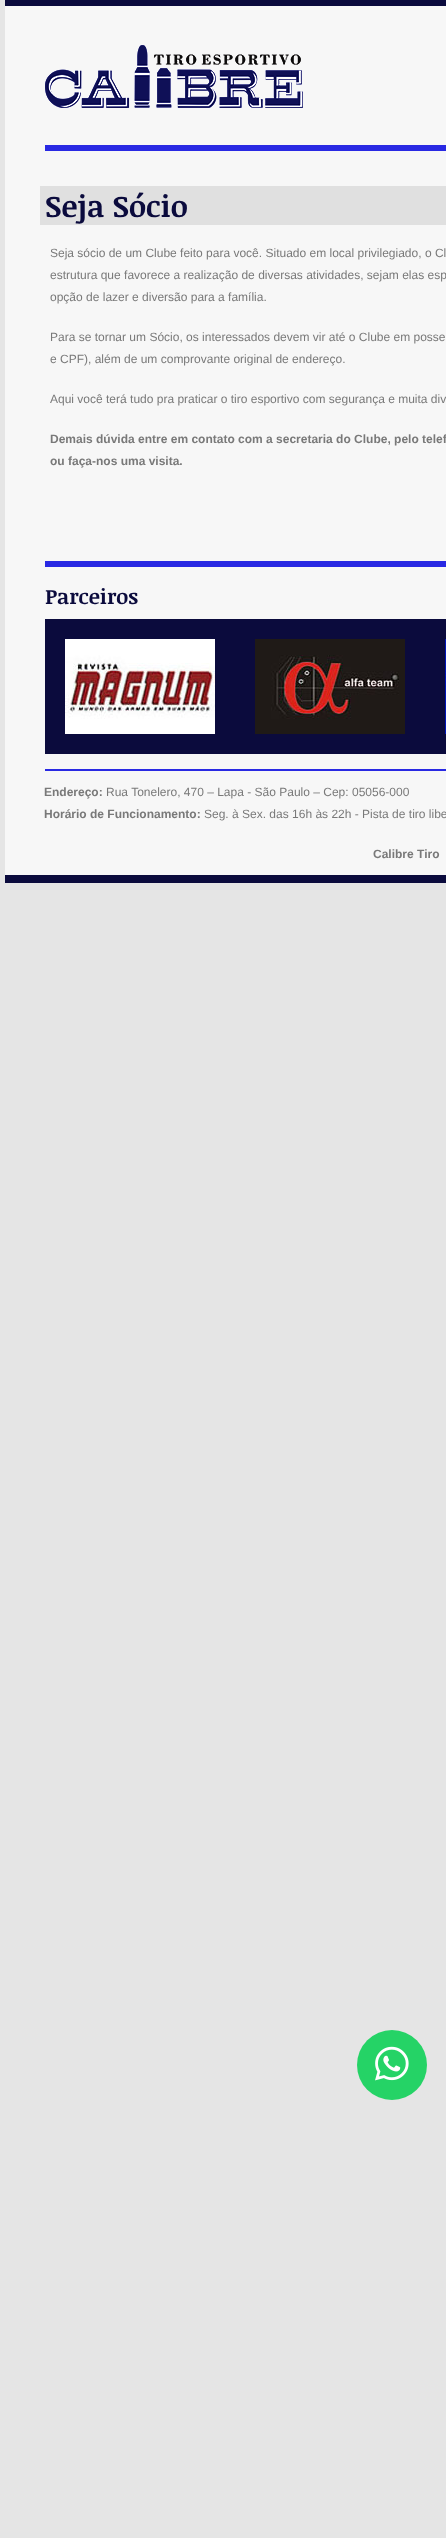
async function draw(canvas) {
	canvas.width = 446;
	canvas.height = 2538;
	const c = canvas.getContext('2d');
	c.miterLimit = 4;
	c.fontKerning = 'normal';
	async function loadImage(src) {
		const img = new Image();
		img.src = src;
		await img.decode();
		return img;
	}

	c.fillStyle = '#e5e5e5';
	c.fillRect(0, 0, 446, 2538);
	c.fillStyle = '#f7f7f7';
	c.fillRect(5, 6, 441, 869);
	c.fillStyle = '#0b0b3d';
	c.fillRect(5, 0, 441, 6);
	c.drawImage(await loadImage('img1.png'), 45, 45, 258, 63);
	c.fillStyle = '#2929e3';
	c.fillRect(45, 145, 401, 6);
	c.fillStyle = '#e0e0e0';
	c.fillRect(40, 186, 406, 39);
	c.font = 'bold 30px Noticia Text';
	c.fillStyle = '#0b0b3d';
	c.fillText('Seja Sócio', 45, 217);
	c.font = '12px Liberation Sans';
	c.fillStyle = '#797979';
	for (const [text, x, y] of [
		['Seja sócio de um Clube feito para você. Situado em local privilegiado, o Cl', 50, 257],
		['estrutura que favorece a realização de diversas atividades, sejam elas esp', 50, 279],
		['opção de lazer e diversão para a família.', 50, 301],
		['Para se tornar um Sócio, os interessados devem vir até o Clube em posse', 50, 341],
		['e CPF), além de um comprovante original de endereço.', 50, 363],
		['Aqui você terá tudo pra praticar o tiro esportivo com segurança e muita div', 50, 403],
	]) {
		c.fillText(text, x, y);
	}
	c.font = 'bold 12px Liberation Sans';
	c.fillText('Demais dúvida entre em contato com a secretaria do Clube, pelo telef', 50, 443);
	c.fillText('ou faça-nos uma visita.', 50, 465);
	c.fillStyle = '#2929e3';
	c.fillRect(45, 561, 401, 6);
	c.font = 'bold 21px Noticia Text';
	c.fillStyle = '#0b0b3d';
	c.fillText('Parceiros', 45, 604);
	c.fillRect(45, 619, 401, 135);
	c.drawImage(await loadImage('img2.png'), 65, 639, 150, 95);
	c.drawImage(await loadImage('img3.png'), 255, 639, 150, 95);
	c.drawImage(await loadImage('img4.png'), 445, 639, 1, 95);
	c.fillStyle = '#2929e3';
	c.fillRect(45, 769, 401, 2);
	c.font = 'bold 12px Liberation Sans';
	c.fillStyle = '#797979';
	c.fillText('Endereço:', 44, 796);
	c.font = '12px Liberation Sans';
	c.fillText('Rua Tonelero, 470 – Lapa - São Paulo – Cep: 05056-000', 106, 796);
	c.font = 'bold 12px Liberation Sans';
	c.fillText('Horário de Funcionamento:', 44, 818);
	c.font = '12px Liberation Sans';
	c.fillText('Seg. à Sex. das 16h às 22h - Pista de tiro libe', 204, 818);
	c.font = 'bold 12px Liberation Sans';
	c.fillText('Calibre Tiro', 373, 858);
	c.fillStyle = '#0b0b3d';
	c.fillRect(5, 875, 441, 8);
	c.fillStyle = '#25d366';
	c.beginPath();
	c.arc(392, 2065, 35, 0, 2 * Math.PI);
	c.fill();
	c.drawImage(await loadImage('img5.png'), 375, 2046, 34, 35);
}

draw(document.querySelector('canvas'));
